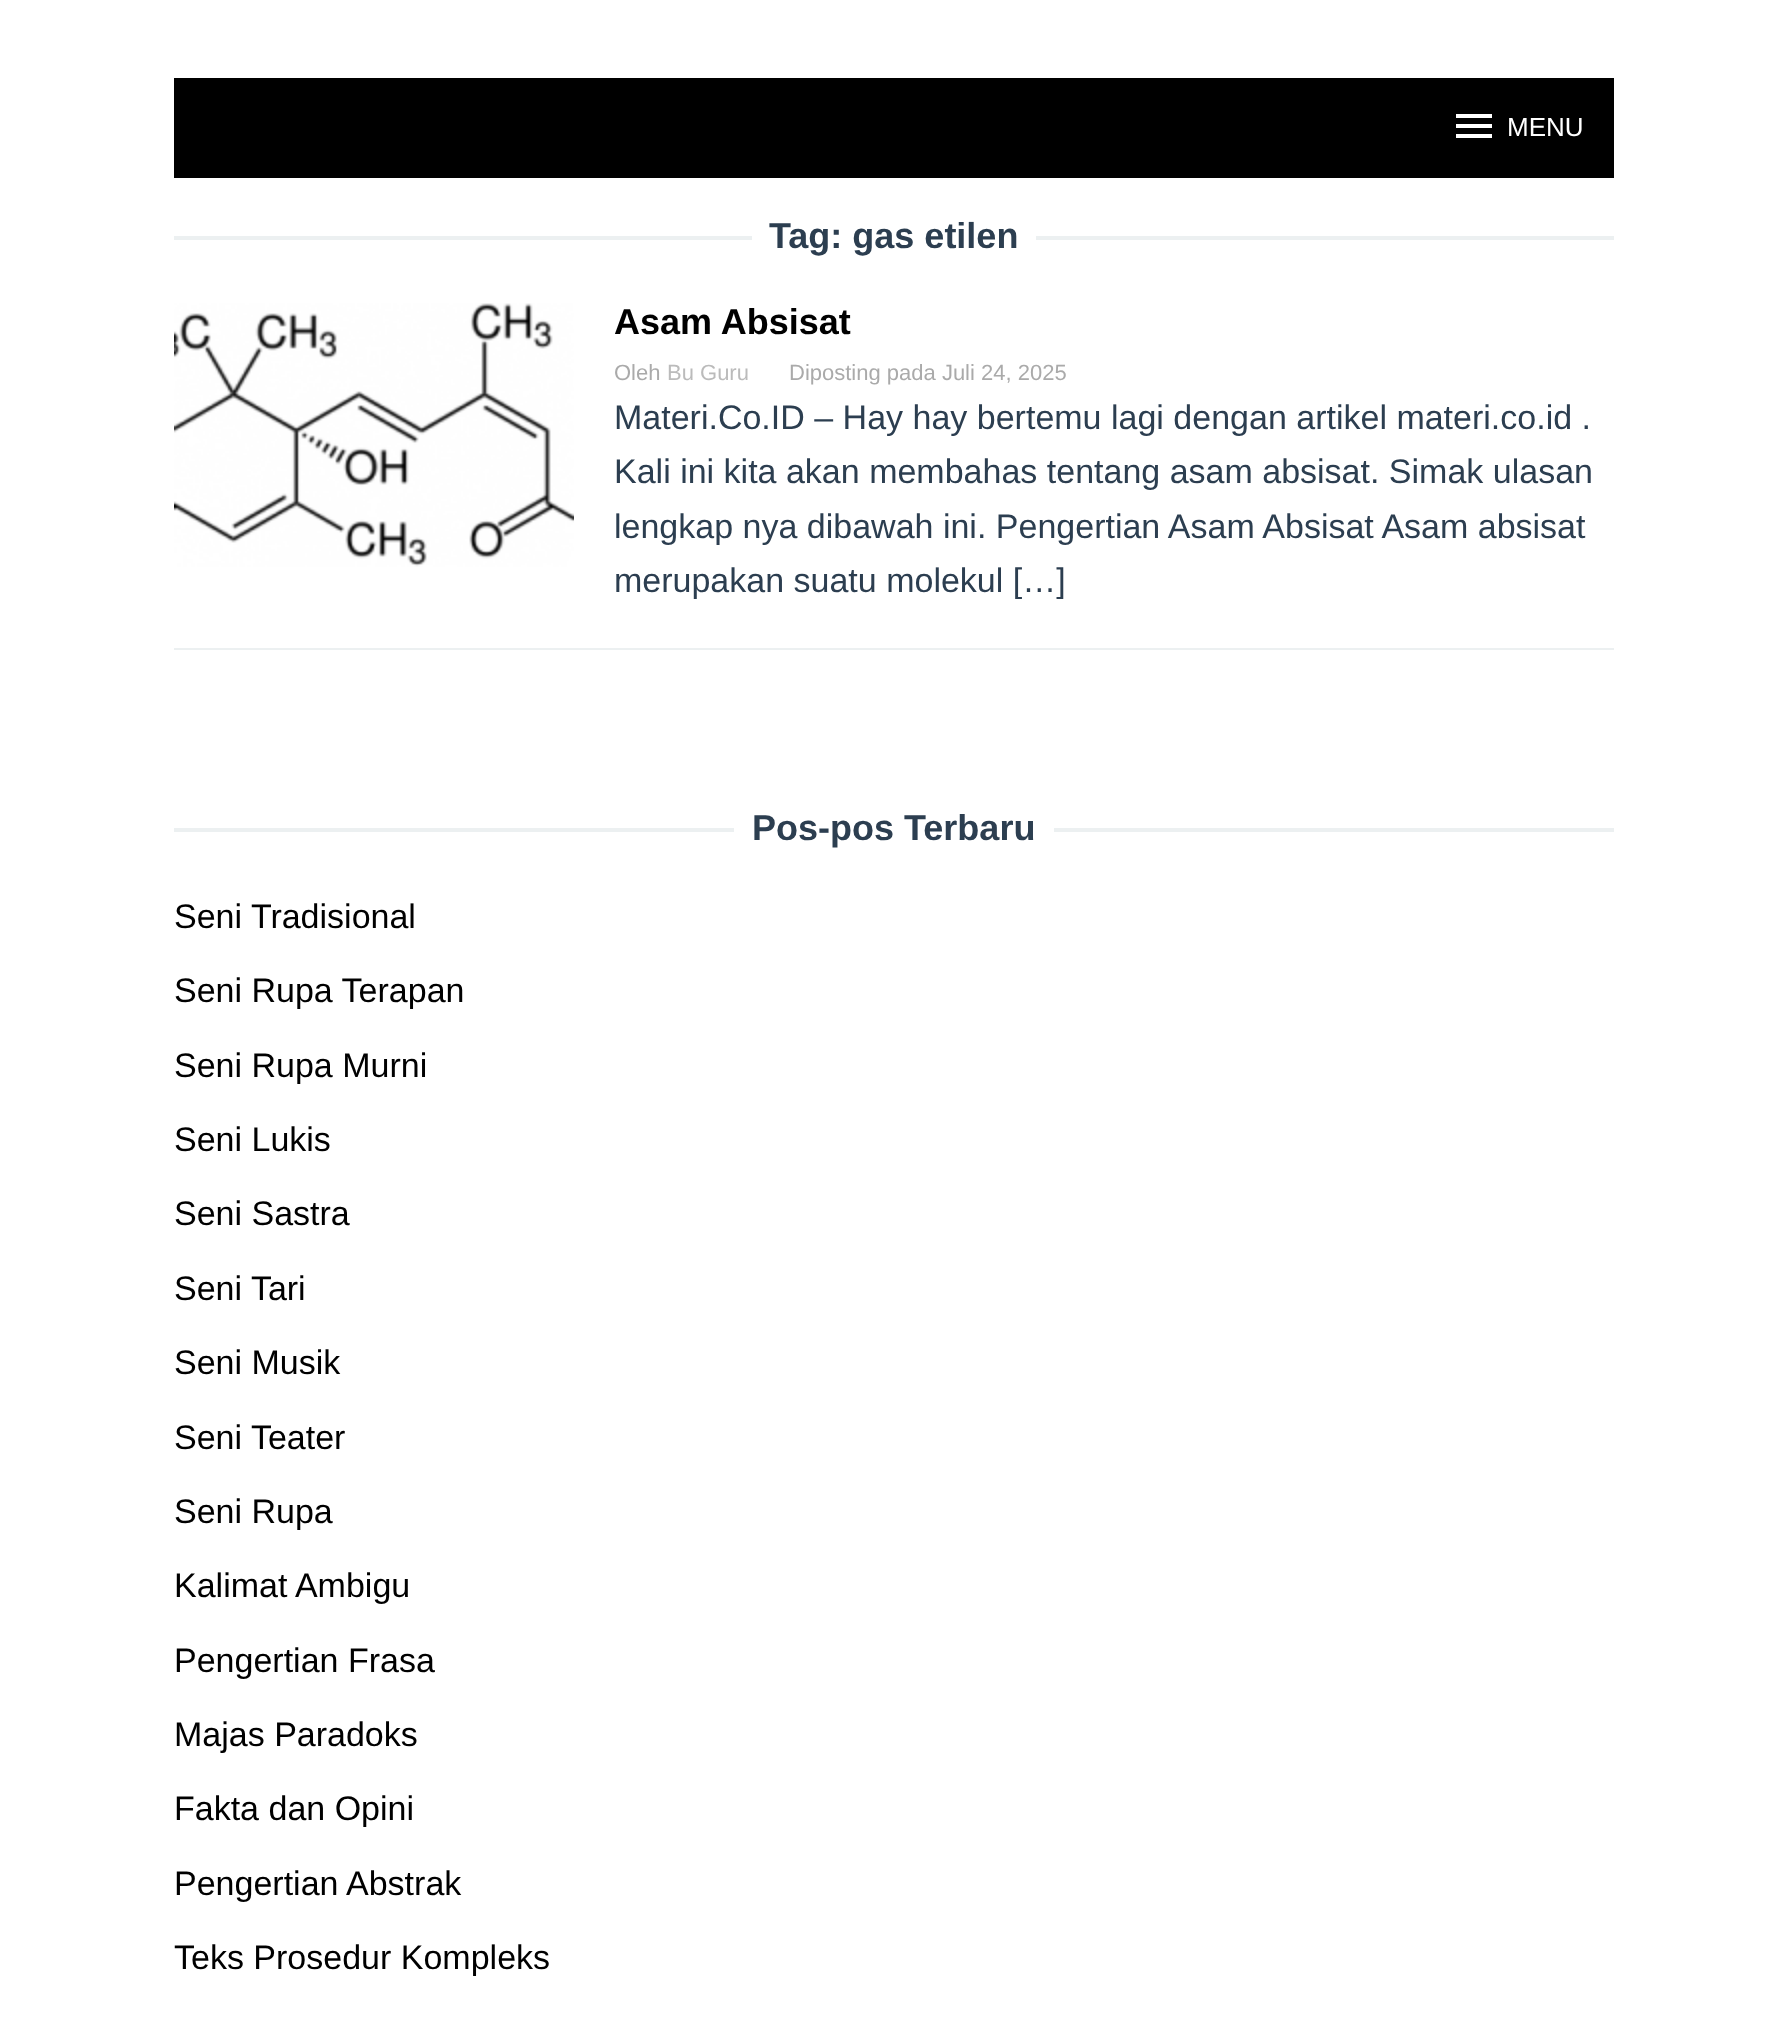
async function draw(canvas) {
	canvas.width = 1787;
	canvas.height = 2020;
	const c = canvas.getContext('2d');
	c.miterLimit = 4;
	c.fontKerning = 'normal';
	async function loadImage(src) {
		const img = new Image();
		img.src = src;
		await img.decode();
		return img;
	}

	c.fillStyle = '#fff';
	c.fillRect(0, 0, 1787, 2020);
	c.fillStyle = '#000';
	c.fillRect(174, 78, 1440, 100);
	c.fillStyle = '#fff';
	c.beginPath();
	c.moveTo(1456, 138);
	c.lineTo(1492, 138);
	c.lineTo(1492, 134);
	c.lineTo(1456, 134);
	c.closePath();
	c.moveTo(1456, 128);
	c.lineTo(1492, 128);
	c.lineTo(1492, 124);
	c.lineTo(1456, 124);
	c.closePath();
	c.moveTo(1456, 114);
	c.lineTo(1456, 118);
	c.lineTo(1492, 118);
	c.lineTo(1492, 114);
	c.closePath();
	c.fill();
	c.font = '26px Liberation Sans';
	c.fillText('MENU', 1507, 136);
	c.fillStyle = '#ecf0f1';
	c.fillRect(174, 236, 578, 4);
	c.font = 'bold 36px Liberation Sans';
	c.fillStyle = '#2c3e50';
	c.fillText('Tag: gas etilen', 769, 248);
	c.fillStyle = '#ecf0f1';
	c.fillRect(1036, 236, 578, 4);
	c.fillRect(174, 648, 1440, 2);
	c.drawImage(await loadImage('img1.png'), 174, 303, 400, 264);
	c.fillStyle = '#000';
	c.fillText('Asam Absisat', 614, 334);
	c.font = '22px Liberation Sans';
	c.fillStyle = '#aaa';
	c.fillText('Oleh', 614, 380);
	c.fillStyle = '#bbb';
	c.fillText('Bu Guru', 667, 380);
	c.fillStyle = '#aaa';
	c.fillText('Diposting pada Juli 24, 2025', 789, 380);
	c.font = '34px Liberation Sans';
	c.fillStyle = '#2c3e50';
	for (const [text, x, y] of [
		['Materi.Co.ID – Hay hay bertemu lagi dengan artikel materi.co.id .', 614, 429],
		['Kali ini kita akan membahas tentang asam absisat. Simak ulasan', 614, 483],
		['lengkap nya dibawah ini. Pengertian Asam Absisat Asam absisat', 614, 538],
		['merupakan suatu molekul […]', 614, 592],
	]) {
		c.fillText(text, x, y);
	}
	c.fillStyle = '#ecf0f1';
	c.fillRect(174, 828, 560, 4);
	c.font = 'bold 36px Liberation Sans';
	c.fillStyle = '#2c3e50';
	c.fillText('Pos-pos Terbaru', 752, 840);
	c.fillStyle = '#ecf0f1';
	c.fillRect(1054, 828, 560, 4);
	c.font = '34px Liberation Sans';
	c.fillStyle = '#000';
	for (const [text, x, y] of [
		['Seni Tradisional', 174, 928],
		['Seni Rupa Terapan', 174, 1002],
		['Seni Rupa Murni', 174, 1077],
		['Seni Lukis', 174, 1151],
		['Seni Sastra', 174, 1225],
		['Seni Tari', 174, 1300],
		['Seni Musik', 174, 1374],
		['Seni Teater', 174, 1449],
		['Seni Rupa', 174, 1523],
		['Kalimat Ambigu', 174, 1597],
		['Pengertian Frasa', 174, 1672],
		['Majas Paradoks', 174, 1746],
		['Fakta dan Opini', 174, 1820],
		['Pengertian Abstrak', 174, 1895],
		['Teks Prosedur Kompleks', 174, 1969],
	]) {
		c.fillText(text, x, y);
	}
}

draw(document.querySelector('canvas'));
